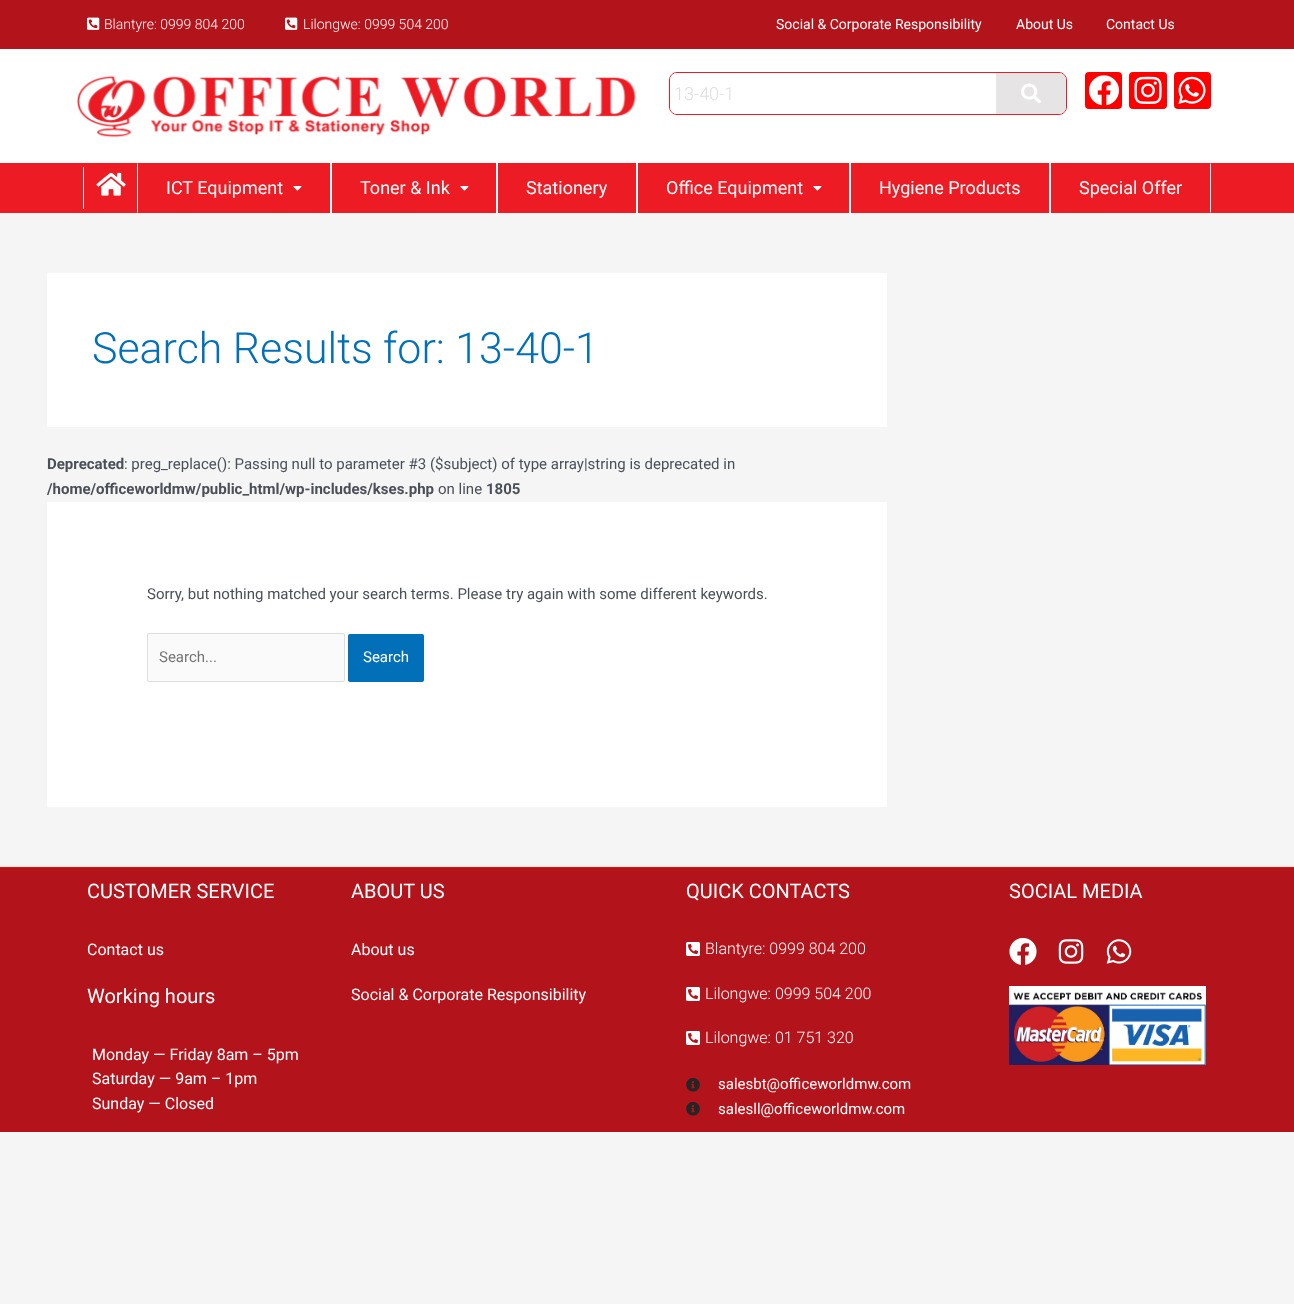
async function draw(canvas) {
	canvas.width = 1294;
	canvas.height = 1304;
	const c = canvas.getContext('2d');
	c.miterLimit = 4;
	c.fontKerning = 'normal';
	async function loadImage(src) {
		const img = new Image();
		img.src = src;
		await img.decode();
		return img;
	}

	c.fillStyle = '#f5f5f5';
	c.fillRect(0, 0, 1294, 1304);
	c.fillStyle = '#b3131a';
	c.fillRect(0, 0, 1294, 49);
	c.drawImage(await loadImage('img1.png'), 87, 17, 13, 13);
	c.font = '300 14px Roboto';
	c.fillStyle = '#fff';
	c.fillText('Blantyre: 0999 804 200', 104, 29);
	c.drawImage(await loadImage('img1.png'), 285, 17, 13, 13);
	c.fillText('Lilongwe: 0999 504 200', 303, 29);
	c.font = '14px Roboto';
	for (const [text, x, y] of [
		['Social & Corporate Responsibility', 776, 29],
		['About Us', 1016, 29],
		['Contact Us', 1106, 29],
	]) {
		c.fillText(text, x, y);
	}
	c.fillRect(0, 49, 1294, 114);
	c.drawImage(await loadImage('img2.png'), 77, 75, 559, 63);
	c.beginPath();
	c.roundRect(669.5, 72.5, 397, 42, 7.5);
	c.strokeStyle = '#ed1b24';
	c.stroke();
	c.beginPath();
	c.roundRect(670, 73, 326, 41, [7, 0, 0, 7]);
	c.fill();
	c.font = '300 18px Roboto';
	c.fillStyle = '#dedede';
	c.fillText('13-40-1', 674, 100);
	c.fillStyle = '#e6e4e4';
	c.beginPath();
	c.roundRect(996, 73, 70, 41, [0, 7, 7, 0]);
	c.fill();
	c.drawImage(await loadImage('img3.png'), 1021, 83, 20, 21);
	c.fillStyle = '#f00';
	c.beginPath();
	c.roundRect(1085, 72, 37, 37, 4);
	c.fill();
	c.drawImage(await loadImage('img4.png'), 1089, 75, 30, 31);
	c.beginPath();
	c.roundRect(1129, 72, 38, 37, 4);
	c.fill();
	c.drawImage(await loadImage('img5.png'), 1134, 76, 28, 28);
	c.beginPath();
	c.roundRect(1174, 72, 37, 37, 4);
	c.fill();
	c.drawImage(await loadImage('img6.png'), 1178, 76, 28, 28);
	c.fillStyle = '#ed1b24';
	c.fillRect(0, 163, 1294, 50);
	c.fillStyle = '#fff';
	c.fillRect(83, 167, 1, 42);
	c.drawImage(await loadImage('img7.png'), 96, 172, 30, 24);
	c.beginPath();
	c.roundRect(137, 163, 1074, 50, 2);
	c.fill();
	c.fillStyle = '#ed1b24';
	c.fillRect(138, 163, 192, 50);
	c.font = '18px Roboto';
	c.fillStyle = '#fff';
	c.fillText('ICT Equipment', 166, 194);
	c.drawImage(await loadImage('img8.png'), 293, 186, 9, 5);
	c.fillStyle = '#ed1b24';
	c.fillRect(332, 163, 164, 50);
	c.fillStyle = '#fff';
	c.fillText('Toner & Ink', 360, 194);
	c.drawImage(await loadImage('img8.png'), 460, 186, 9, 5);
	c.fillStyle = '#ed1b24';
	c.fillRect(498, 163, 138, 50);
	c.fillStyle = '#fff';
	c.fillText('Stationery', 526, 194);
	c.fillStyle = '#ed1b24';
	c.fillRect(638, 163, 211, 50);
	c.fillStyle = '#fff';
	c.fillText('Office Equipment', 666, 194);
	c.drawImage(await loadImage('img8.png'), 813, 186, 9, 5);
	c.fillStyle = '#ed1b24';
	c.fillRect(851, 163, 198, 50);
	c.fillStyle = '#fff';
	c.fillText('Hygiene Products', 879, 194);
	c.fillStyle = '#ed1b24';
	c.fillRect(1051, 163, 159, 50);
	c.fillStyle = '#fff';
	c.fillText('Special Offer', 1079, 194);
	c.fillRect(47, 273, 840, 154);
	c.font = '300 42.9px Roboto';
	c.fillStyle = '#0170b9';
	c.fillText('Search Results for: 13-40-1', 92, 363);
	c.font = 'bold 15px Roboto';
	c.fillStyle = '#4b4f58';
	c.fillText('Deprecated', 47, 469);
	c.font = '15px Roboto';
	c.fillText(': preg_replace(): Passing null to parameter #3 ($subject) of type array|string is deprecated in', 124, 469);
	c.font = 'bold 15px Roboto';
	c.fillText('/home/officeworldmw/public_html/wp-includes/kses.php', 47, 494);
	c.font = '15px Roboto';
	c.fillText('on line', 438, 494);
	c.font = 'bold 15px Roboto';
	c.fillText('1805', 486, 494);
	c.fillStyle = '#fff';
	c.fillRect(47, 502, 840, 305);
	c.font = '15px Roboto';
	c.fillStyle = '#4b4f58';
	c.fillText('Sorry, but nothing matched your search terms. Please try again with some different keywords.', 147, 599);
	c.fillStyle = '#fafafa';
	c.beginPath();
	c.roundRect(147.5, 633.5, 197, 48, 1.5);
	c.fill();
	c.strokeStyle = '#ddd';
	c.stroke();
	c.fillStyle = '#757575';
	c.fillText('Search...', 159, 662);
	c.fillStyle = '#0170b9';
	c.beginPath();
	c.roundRect(348, 634, 76, 48, 2);
	c.fill();
	c.fillStyle = '#fff';
	c.fillText('Search', 363, 662);
	c.fillStyle = '#f00';
	c.fillRect(0, 867, 1294, 1);
	c.fillStyle = '#b3131a';
	c.fillRect(0, 868, 1294, 264);
	c.font = '20px Roboto';
	c.fillStyle = '#fff';
	c.fillText('CUSTOMER SERVICE', 87, 898);
	c.font = '16px Roboto';
	c.fillText('Contact us', 87, 955);
	c.font = '20px Roboto';
	c.fillText('Working hours', 87, 1003);
	c.font = '16px Roboto';
	for (const [text, x, y] of [
		['Monday — Friday 8am – 5pm', 92, 1060],
		['Saturday — 9am – 1pm', 92, 1084],
		['Sunday — Closed', 92, 1109],
	]) {
		c.fillText(text, x, y);
	}
	c.font = '20px Roboto';
	c.fillText('ABOUT US', 351, 898);
	c.font = '16px Roboto';
	c.fillText('About us', 351, 955);
	c.fillText('Social & Corporate Responsibility', 351, 1000);
	c.font = '20px Roboto';
	c.fillText('QUICK CONTACTS', 686, 898);
	c.drawImage(await loadImage('img9.png'), 686, 942, 14, 14);
	c.font = '300 16px Roboto';
	c.fillText('Blantyre: 0999 804 200', 705, 954);
	c.drawImage(await loadImage('img9.png'), 686, 987, 14, 14);
	c.fillText('Lilongwe: 0999 504 200', 705, 999);
	c.drawImage(await loadImage('img9.png'), 686, 1031, 14, 14);
	c.fillText('Lilongwe: 01 751 320', 705, 1043);
	c.drawImage(await loadImage('img10.png'), 686, 1078, 14, 14);
	c.font = '15px Roboto';
	c.fillText('salesbt@officeworldmw.com', 718, 1089);
	c.drawImage(await loadImage('img10.png'), 686, 1102, 14, 14);
	c.fillText('salesll@officeworldmw.com', 718, 1114);
	c.font = '20px Roboto';
	c.fillText('SOCIAL MEDIA', 1009, 898);
	c.drawImage(await loadImage('img11.png'), 1009, 937, 28, 28);
	c.drawImage(await loadImage('img12.png'), 1058, 939, 26, 25);
	c.drawImage(await loadImage('img13.png'), 1106, 939, 26, 25);
	c.drawImage(await loadImage('img14.png'), 1009, 986, 197, 79);
}

draw(document.querySelector('canvas'));
